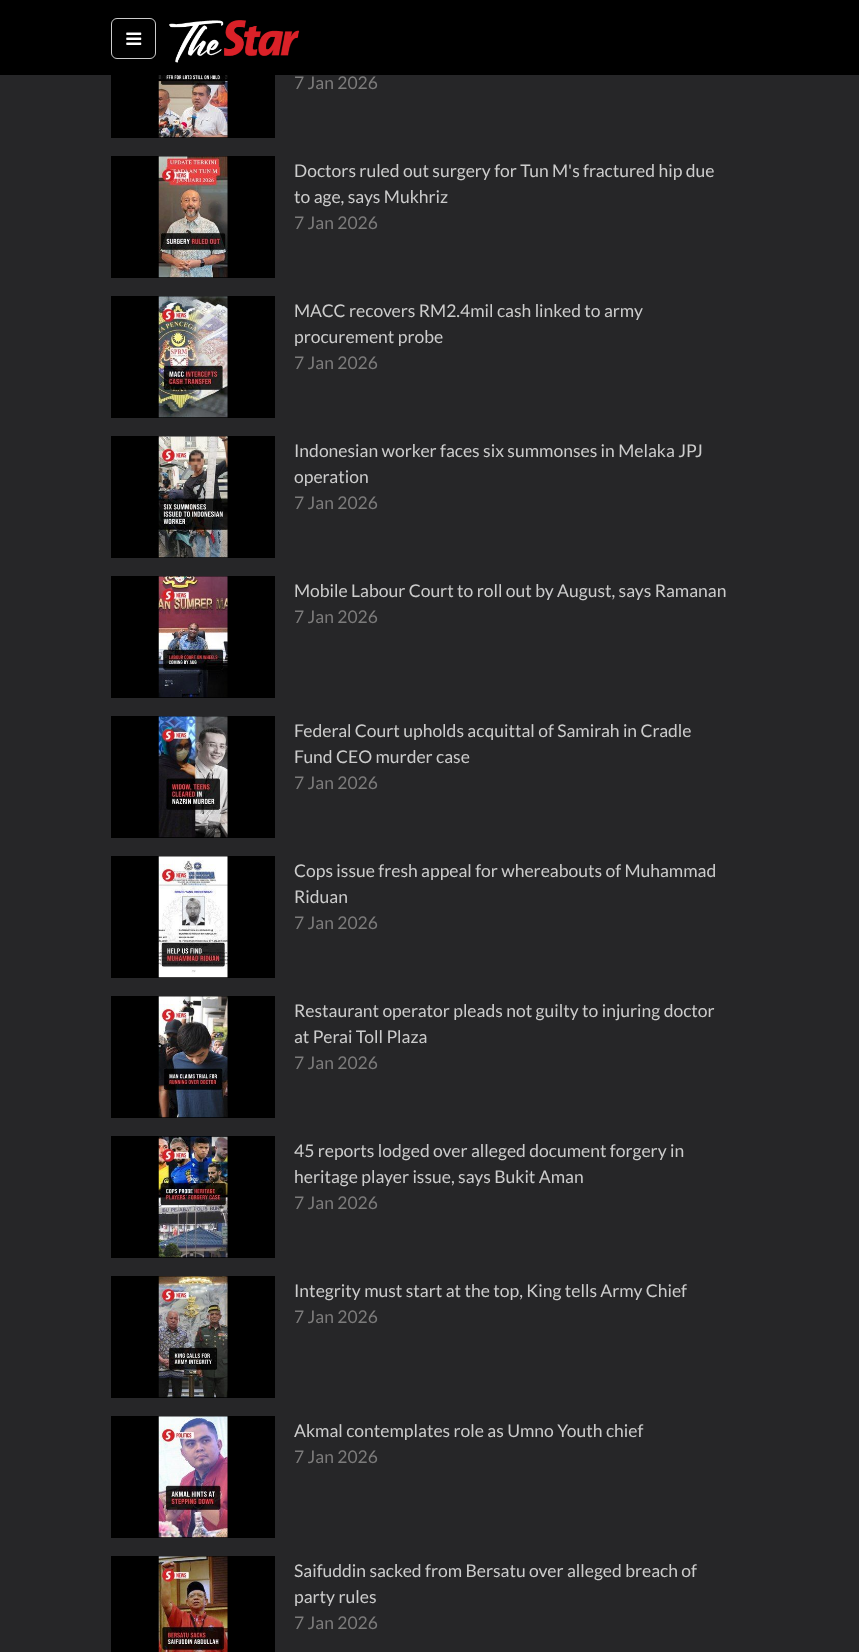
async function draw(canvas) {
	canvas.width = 859;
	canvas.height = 1652;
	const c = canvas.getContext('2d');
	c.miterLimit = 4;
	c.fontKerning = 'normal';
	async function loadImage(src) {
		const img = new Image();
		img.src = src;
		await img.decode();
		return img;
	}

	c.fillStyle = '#262628';
	c.fillRect(0, 0, 859, 1652);
	c.fillStyle = '#000';
	c.fillRect(0, 0, 859, 75);
	c.beginPath();
	c.roundRect(111.5, 18.5, 44, 40, 5.5);
	c.strokeStyle = '#ccc';
	c.stroke();
	c.drawImage(await loadImage('img1.png'), 126, 32, 16, 13);
	c.drawImage(await loadImage('img2.png'), 169, 20, 131, 43);
	c.fillRect(111, 75, 164, 63);
	c.drawImage(await loadImage('img3.png'), 158, 75, 70, 63);
	c.font = '17.5px Lato';
	c.fillStyle = '#7c7b7b';
	c.fillText('7 Jan 2026', 294, 89);
	c.fillStyle = '#000';
	c.fillRect(111, 156, 164, 122);
	c.drawImage(await loadImage('img4.png'), 158, 156, 70, 122);
	c.fillStyle = '#ccc';
	c.fillText('Doctors ruled out surgery for Tun M\'s fractured hip due', 294, 177);
	c.fillText('to age, says Mukhriz', 294, 203);
	c.fillStyle = '#7c7b7b';
	c.fillText('7 Jan 2026', 294, 229);
	c.fillStyle = '#000';
	c.fillRect(111, 296, 164, 122);
	c.drawImage(await loadImage('img5.png'), 158, 296, 70, 122);
	c.fillStyle = '#ccc';
	c.fillText('MACC recovers RM2.4mil cash linked to army', 294, 317);
	c.fillText('procurement probe', 294, 343);
	c.fillStyle = '#7c7b7b';
	c.fillText('7 Jan 2026', 294, 369);
	c.fillStyle = '#000';
	c.fillRect(111, 436, 164, 122);
	c.drawImage(await loadImage('img6.png'), 158, 436, 70, 122);
	c.fillStyle = '#ccc';
	c.fillText('Indonesian worker faces six summonses in Melaka JPJ', 294, 457);
	c.fillText('operation', 294, 483);
	c.fillStyle = '#7c7b7b';
	c.fillText('7 Jan 2026', 294, 509);
	c.fillStyle = '#000';
	c.fillRect(111, 576, 164, 122);
	c.drawImage(await loadImage('img7.png'), 158, 576, 70, 122);
	c.fillStyle = '#ccc';
	c.fillText('Mobile Labour Court to roll out by August, says Ramanan', 294, 597);
	c.fillStyle = '#7c7b7b';
	c.fillText('7 Jan 2026', 294, 623);
	c.fillStyle = '#000';
	c.fillRect(111, 716, 164, 122);
	c.drawImage(await loadImage('img8.png'), 158, 716, 70, 122);
	c.fillStyle = '#ccc';
	c.fillText('Federal Court upholds acquittal of Samirah in Cradle', 294, 737);
	c.fillText('Fund CEO murder case', 294, 763);
	c.fillStyle = '#7c7b7b';
	c.fillText('7 Jan 2026', 294, 789);
	c.fillStyle = '#000';
	c.fillRect(111, 856, 164, 122);
	c.drawImage(await loadImage('img9.png'), 158, 856, 70, 122);
	c.fillStyle = '#ccc';
	c.fillText('Cops issue fresh appeal for whereabouts of Muhammad', 294, 877);
	c.fillText('Riduan', 294, 903);
	c.fillStyle = '#7c7b7b';
	c.fillText('7 Jan 2026', 294, 929);
	c.fillStyle = '#000';
	c.fillRect(111, 996, 164, 122);
	c.drawImage(await loadImage('img10.png'), 158, 996, 70, 122);
	c.fillStyle = '#ccc';
	c.fillText('Restaurant operator pleads not guilty to injuring doctor', 294, 1017);
	c.fillText('at Perai Toll Plaza', 294, 1043);
	c.fillStyle = '#7c7b7b';
	c.fillText('7 Jan 2026', 294, 1069);
	c.fillStyle = '#000';
	c.fillRect(111, 1136, 164, 122);
	c.drawImage(await loadImage('img11.png'), 158, 1136, 70, 122);
	c.fillStyle = '#ccc';
	c.fillText('45 reports lodged over alleged document forgery in', 294, 1157);
	c.fillText('heritage player issue, says Bukit Aman', 294, 1183);
	c.fillStyle = '#7c7b7b';
	c.fillText('7 Jan 2026', 294, 1209);
	c.fillStyle = '#000';
	c.fillRect(111, 1276, 164, 122);
	c.drawImage(await loadImage('img12.png'), 158, 1276, 70, 122);
	c.fillStyle = '#ccc';
	c.fillText('Integrity must start at the top, King tells Army Chief', 294, 1297);
	c.fillStyle = '#7c7b7b';
	c.fillText('7 Jan 2026', 294, 1323);
	c.fillStyle = '#000';
	c.fillRect(111, 1416, 164, 122);
	c.drawImage(await loadImage('img13.png'), 158, 1416, 70, 122);
	c.fillStyle = '#ccc';
	c.fillText('Akmal contemplates role as Umno Youth chief', 294, 1437);
	c.fillStyle = '#7c7b7b';
	c.fillText('7 Jan 2026', 294, 1463);
	c.fillStyle = '#000';
	c.fillRect(111, 1556, 164, 96);
	c.drawImage(await loadImage('img14.png'), 158, 1556, 70, 96);
	c.fillStyle = '#ccc';
	c.fillText('Saifuddin sacked from Bersatu over alleged breach of', 294, 1577);
	c.fillText('party rules', 294, 1603);
	c.fillStyle = '#7c7b7b';
	c.fillText('7 Jan 2026', 294, 1629);
}

draw(document.querySelector('canvas'));
